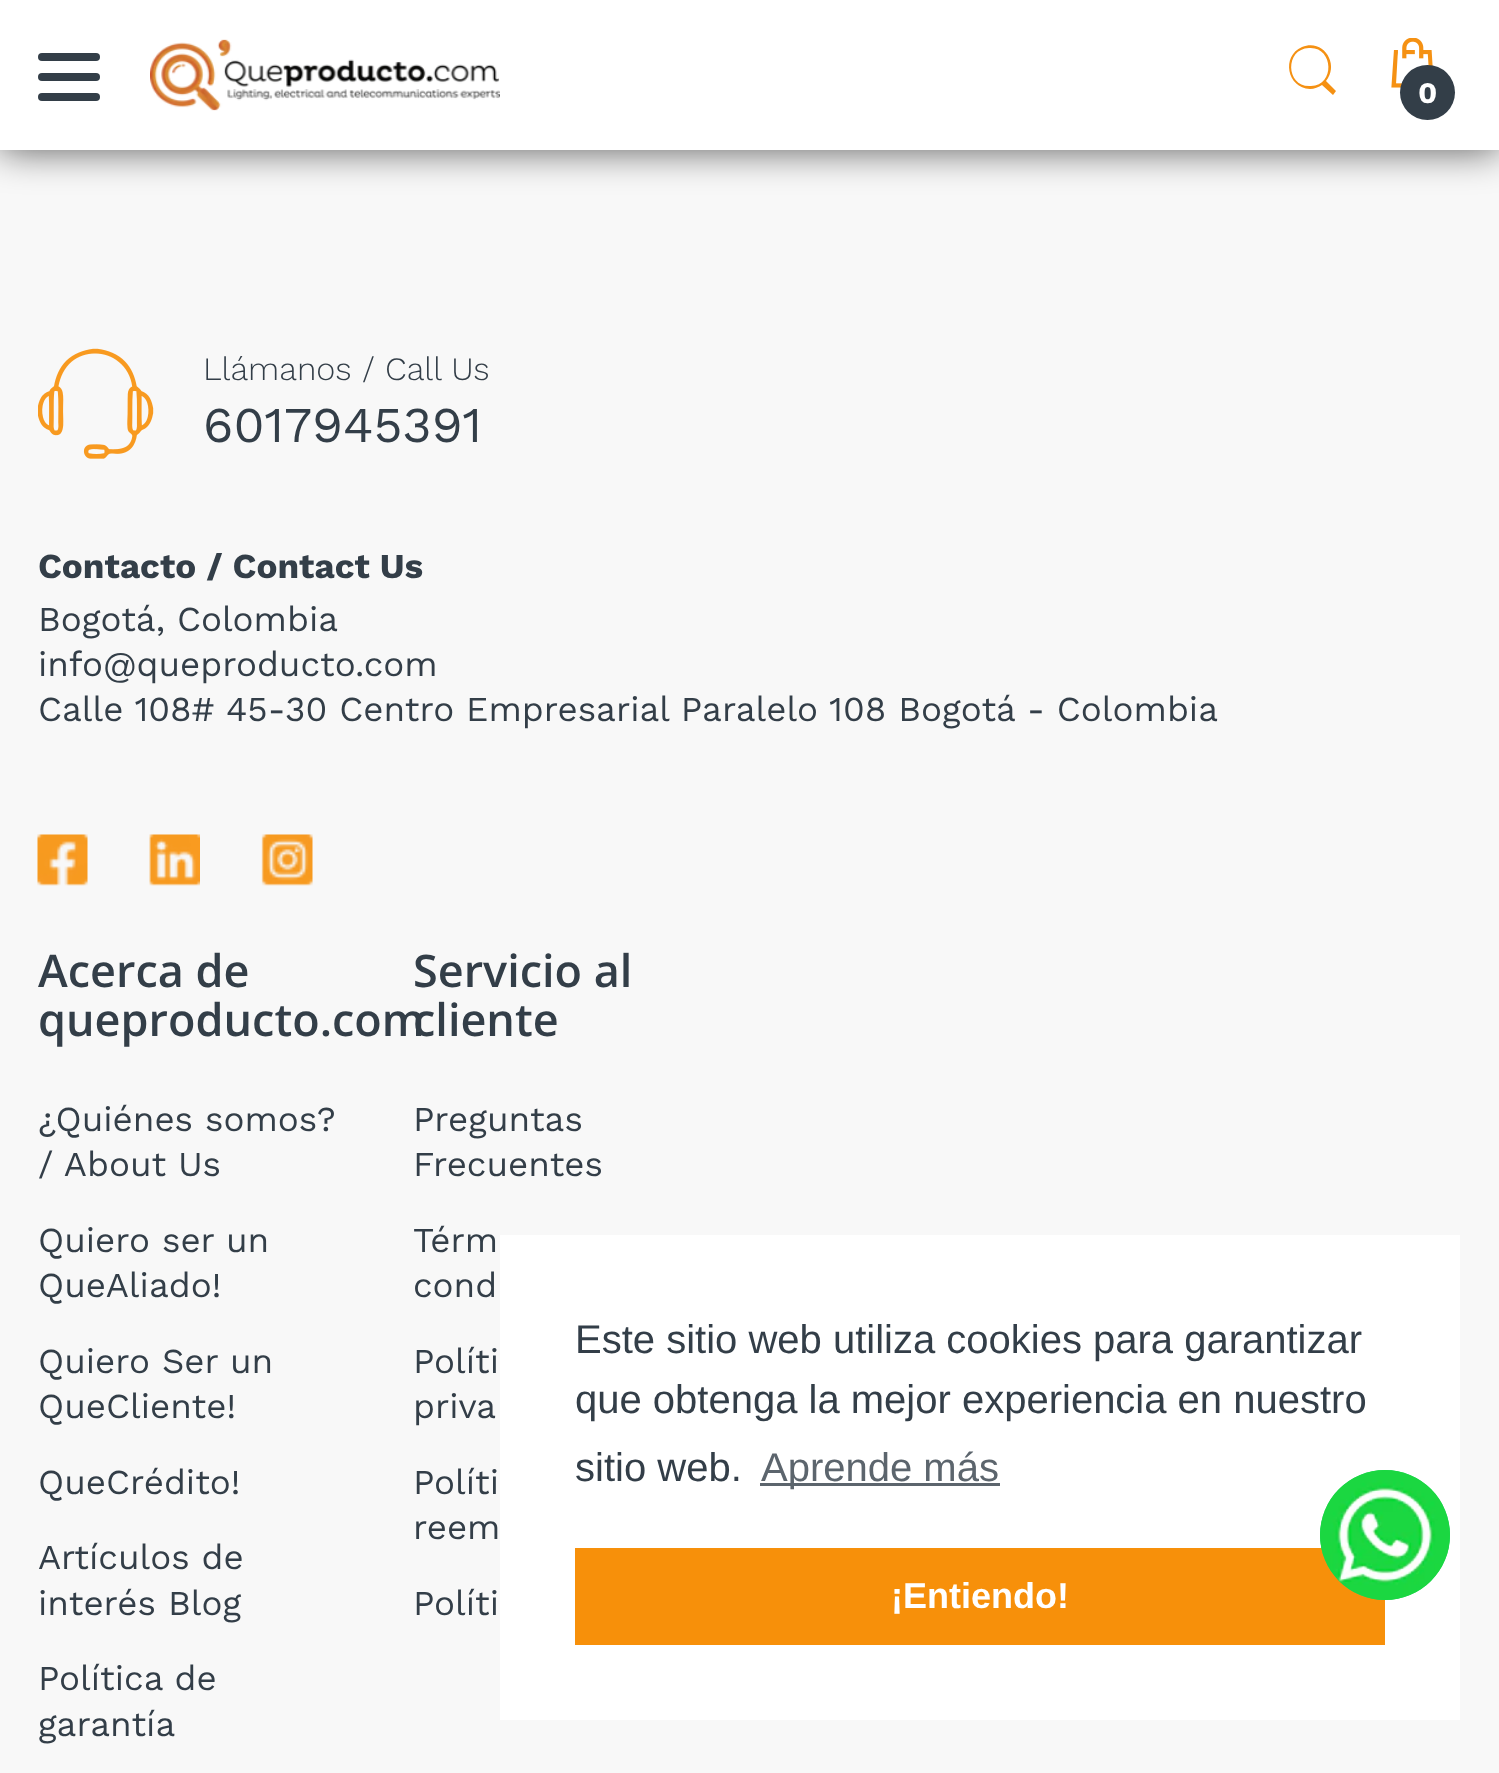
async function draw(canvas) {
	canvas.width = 1499;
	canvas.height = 1773;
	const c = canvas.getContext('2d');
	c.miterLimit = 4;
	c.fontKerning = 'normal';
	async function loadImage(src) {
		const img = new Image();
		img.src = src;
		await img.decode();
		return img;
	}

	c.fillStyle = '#f8f8f8';
	c.fillRect(0, 0, 1499, 1773);
	c.fillStyle = '#000000a6';
	c.filter = 'blur(19px)';
	c.beginPath();
	c.rect(0, 0, 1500, 150);
	c.fill();
	c.filter = 'none';
	c.fillStyle = '#fff';
	c.fillRect(0, 0, 1499, 150);
	c.fillStyle = '#333e48';
	c.beginPath();
	c.roundRect(38, 53, 62, 8, 4);
	c.fill();
	c.beginPath();
	c.roundRect(38, 73, 62, 8, 4);
	c.fill();
	c.beginPath();
	c.roundRect(38, 93, 62, 8, 4);
	c.fill();
	c.drawImage(await loadImage('img1.png'), 150, 39, 350, 72);
	c.fillStyle = '#f59113';
	c.beginPath();
	c.moveTo(1302, 47);
	c.bezierCurveTo(1323, 38, 1340, 64, 1326, 81);
	c.lineTo(1336, 91);
	c.lineTo(1333, 95);
	c.lineTo(1322, 85);
	c.bezierCurveTo(1319, 87, 1314, 89, 1310, 89);
	c.bezierCurveTo(1287, 88, 1281, 56, 1302, 47);
	c.moveTo(1309, 48);
	c.bezierCurveTo(1284, 49, 1286, 88, 1311, 86);
	c.bezierCurveTo(1336, 85, 1333, 46, 1309, 48);
	c.closePath();
	c.fill();
	c.drawImage(await loadImage('img2.png'), 1391, 38, 42, 50);
	c.fillStyle = '#333e48';
	c.beginPath();
	c.arc(1427.5, 92.5, 27.5, 0, 2 * Math.PI);
	c.fill();
	c.font = 'bold 30px Work Sans';
	c.fillStyle = '#fff';
	c.fillText('0', 1418, 103);
	c.drawImage(await loadImage('img3.png'), 38, 348, 116, 111);
	c.font = '300 32.5px Work Sans';
	c.fillStyle = '#333e48';
	c.fillText('Llámanos / Call Us', 203, 380);
	c.font = '50px Work Sans';
	c.fillText('6017945391', 203, 442);
	c.font = 'bold 35px Work Sans';
	c.fillText('Contacto / Contact Us', 38, 578);
	c.font = '35px Work Sans';
	for (const [text, x, y] of [
		['Bogotá, Colombia', 38, 631],
		['info@queproducto.com', 38, 676],
		['Calle 108# 45-30 Centro Empresarial Paralelo 108 Bogotá - Colombia', 38, 721],
	]) {
		c.fillText(text, x, y);
	}
	c.drawImage(await loadImage('img4.png'), 37, 834, 51, 52);
	c.drawImage(await loadImage('img5.png'), 149, 834, 51, 52);
	c.drawImage(await loadImage('img6.png'), 261, 834, 52, 52);
	c.font = '600 45px Open Sans';
	c.fillText('Acerca de', 38, 987);
	c.fillText('queproducto.com', 38, 1036);
	c.font = '35px Work Sans';
	for (const [text, x, y] of [
		['¿Quiénes somos?', 38, 1131],
		['/ About Us', 38, 1176],
		['Quiero ser un', 38, 1252],
		['QueAliado!', 38, 1297],
		['Quiero Ser un', 38, 1373],
		['QueCliente!', 38, 1418],
		['QueCrédito!', 38, 1494],
		['Artículos de', 38, 1569],
		['interés Blog', 38, 1615],
		['Política de', 38, 1690],
		['garantía', 38, 1736],
	]) {
		c.fillText(text, x, y);
	}
	c.font = '600 45px Open Sans';
	c.fillText('Servicio al', 413, 987);
	c.fillText('cliente', 413, 1036);
	c.font = '35px Work Sans';
	c.fillText('Preguntas', 413, 1131);
	c.fillText('Frecuentes', 413, 1176);
	c.wordSpacing = '-1px';
	c.fillText('Térm', 413, 1252);
	c.wordSpacing = '0px';
	for (const [text, x, y] of [
		['cond', 413, 1297],
		['Políti', 413, 1373],
		['priva', 413, 1418],
		['Políti', 413, 1494],
		['reem', 413, 1539],
		['Políti', 413, 1615],
	]) {
		c.fillText(text, x, y);
	}
	c.fillStyle = '#fff';
	c.fillRect(500, 1235, 960, 485);
	c.font = '40px Liberation Sans';
	c.fillStyle = '#333e48';
	for (const [text, x, y] of [
		['Este sitio web utiliza cookies para garantizar', 575, 1353],
		['que obtenga la mejor experiencia en nuestro', 575, 1413],
		['sitio web.', 575, 1481],
	]) {
		c.fillText(text, x, y);
	}
	c.fillStyle = '#5c656d';
	c.fillRect(760, 1483, 240, 3);
	c.fillText('Aprende más', 761, 1481);
	c.fillStyle = '#f7900a';
	c.fillRect(575, 1548, 810, 97);
	c.font = 'bold 36px Liberation Sans';
	c.fillStyle = '#fff';
	c.fillText('¡Entiendo!', 891, 1608);
	c.fillStyle = '#25d366';
	c.beginPath();
	c.arc(1385, 1535, 65, 0, 2 * Math.PI);
	c.fill();
	c.drawImage(await loadImage('img7.png'), 1320, 1470, 130, 130);
}

draw(document.querySelector('canvas'));
